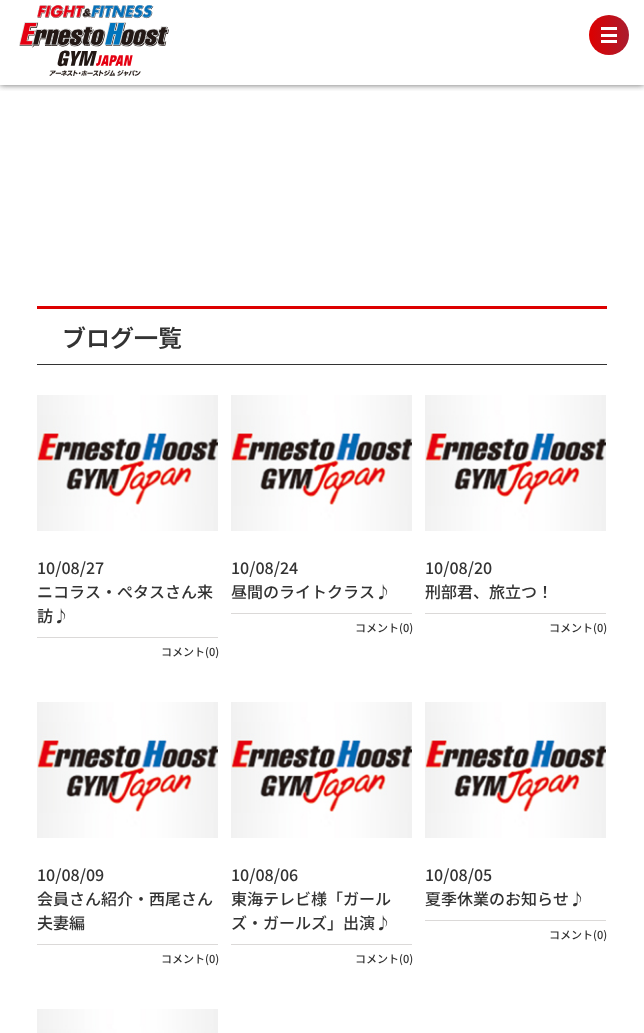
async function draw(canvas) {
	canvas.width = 644;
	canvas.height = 1033;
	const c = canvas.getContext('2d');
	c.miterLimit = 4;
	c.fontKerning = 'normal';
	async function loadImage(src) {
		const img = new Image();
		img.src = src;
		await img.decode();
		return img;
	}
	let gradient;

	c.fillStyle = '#fff';
	c.fillRect(0, 0, 644, 1033);
	c.save();
	c.beginPath();
	c.rect(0, 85, 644, 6);
	c.clip();
	c.fillStyle = '#666';
	c.filter = 'blur(3px)';
	c.beginPath();
	c.rect(0, 0, 644, 85);
	c.fill();
	c.filter = 'none';
	c.restore();
	c.drawImage(await loadImage('img1.png'), 19, 5, 150, 71);
	gradient = c.createLinearGradient(589, 35, 629, 35);
	gradient.addColorStop(0, '#d00');
	gradient.addColorStop(1, '#aa1c2e');
	c.fillStyle = gradient;
	c.beginPath();
	c.arc(609, 35, 20, 0, 2 * Math.PI);
	c.fill();
	for (const [x, y, w, h, color] of [
		[601, 27, 16, 3, '#fff'],
		[601, 34, 16, 3, '#fff'],
		[601, 40, 16, 3, '#fff'],
		[37, 306, 570, 3, '#d00'],
		[37, 364, 570, 1, '#333'],
	]) {
		c.fillStyle = color;
		c.fillRect(x, y, w, h);
	}
	c.font = '600 24px Noto Sans JP';
	c.fillText('ブログ一覧', 62, 347);
	c.drawImage(await loadImage('img2.png'), 37, 395, 181, 136);
	c.font = '500 16px Noto Sans JP';
	for (const [text, x, y] of [
		['10/08/27', 37, 574],
		['ニコラス・ぺタスさん来', 37, 598],
		['訪♪', 37, 622],
	]) {
		c.fillText(text, x, y);
	}
	c.fillStyle = '#dbd9d8';
	c.fillRect(37, 637, 181, 1);
	c.font = '500 11px Noto Sans JP';
	c.fillStyle = '#333';
	c.fillText('コメント(0)', 161, 656);
	c.drawImage(await loadImage('img2.png'), 231, 395, 181, 136);
	c.font = '500 16px Noto Sans JP';
	c.fillText('10/08/24', 231, 574);
	c.fillText('昼間のライトクラス♪', 231, 598);
	c.fillStyle = '#dbd9d8';
	c.fillRect(231, 613, 181, 1);
	c.font = '500 11px Noto Sans JP';
	c.fillStyle = '#333';
	c.fillText('コメント(0)', 355, 632);
	c.drawImage(await loadImage('img2.png'), 425, 395, 181, 136);
	c.font = '500 16px Noto Sans JP';
	c.fillText('10/08/20', 425, 574);
	c.fillText('刑部君、旅立つ！', 425, 598);
	c.fillStyle = '#dbd9d8';
	c.fillRect(425, 613, 181, 1);
	c.font = '500 11px Noto Sans JP';
	c.fillStyle = '#333';
	c.fillText('コメント(0)', 549, 632);
	c.drawImage(await loadImage('img2.png'), 37, 702, 181, 136);
	c.font = '500 16px Noto Sans JP';
	for (const [text, x, y] of [
		['10/08/09', 37, 881],
		['会員さん紹介・西尾さん', 37, 905],
		['夫妻編', 37, 929],
	]) {
		c.fillText(text, x, y);
	}
	c.fillStyle = '#dbd9d8';
	c.fillRect(37, 944, 181, 1);
	c.font = '500 11px Noto Sans JP';
	c.fillStyle = '#333';
	c.fillText('コメント(0)', 161, 963);
	c.drawImage(await loadImage('img2.png'), 231, 702, 181, 136);
	c.font = '500 16px Noto Sans JP';
	for (const [text, x, y] of [
		['10/08/06', 231, 881],
		['東海テレビ様「ガール', 231, 905],
		['ズ・ガールズ」出演♪', 231, 929],
	]) {
		c.fillText(text, x, y);
	}
	c.fillStyle = '#dbd9d8';
	c.fillRect(231, 944, 181, 1);
	c.font = '500 11px Noto Sans JP';
	c.fillStyle = '#333';
	c.fillText('コメント(0)', 355, 963);
	c.drawImage(await loadImage('img2.png'), 425, 702, 181, 136);
	c.font = '500 16px Noto Sans JP';
	c.fillText('10/08/05', 425, 881);
	c.fillText('夏季休業のお知らせ♪', 425, 905);
	c.fillStyle = '#dbd9d8';
	c.fillRect(425, 920, 181, 1);
	c.font = '500 11px Noto Sans JP';
	c.fillStyle = '#333';
	c.fillText('コメント(0)', 549, 939);
	c.drawImage(await loadImage('img3.png'), 37, 1009, 181, 24);
}

draw(document.querySelector('canvas'));
